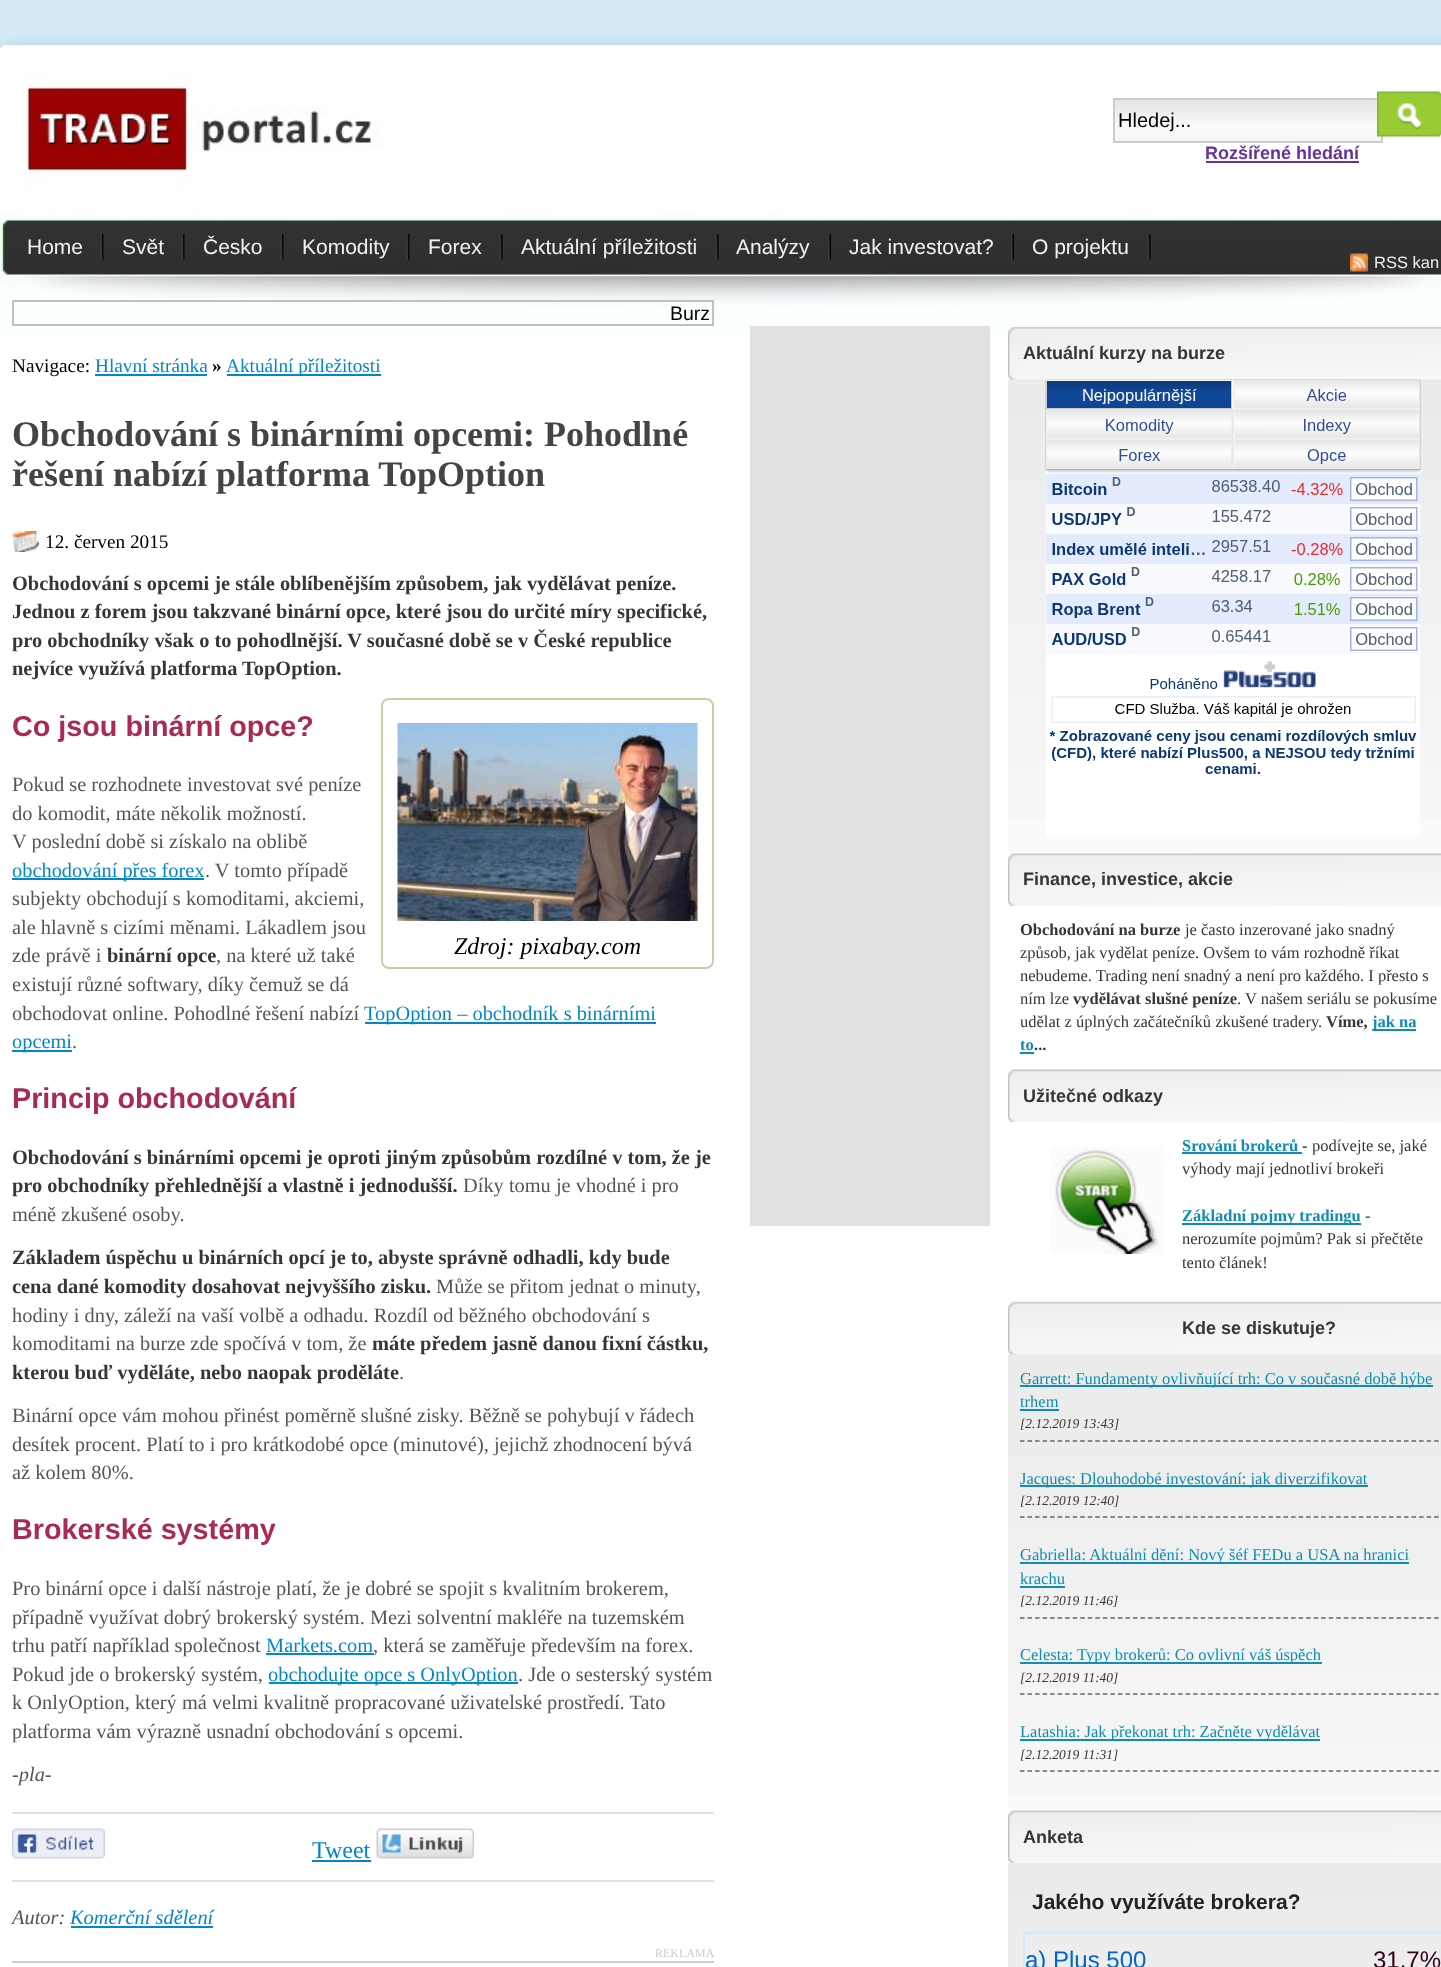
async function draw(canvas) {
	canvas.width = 1441;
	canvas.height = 1967;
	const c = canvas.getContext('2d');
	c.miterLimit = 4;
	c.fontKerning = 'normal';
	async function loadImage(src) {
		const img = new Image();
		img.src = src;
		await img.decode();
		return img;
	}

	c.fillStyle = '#d4e9f3';
	c.fillRect(0, 0, 1441, 1967);
	c.fillStyle = '#8fc2db';
	c.filter = 'blur(6px)';
	c.beginPath();
	c.roundRect(3, 48, 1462, 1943, 6);
	c.fill();
	c.filter = 'none';
	c.fillStyle = '#fff';
	c.beginPath();
	c.roundRect(0, 45, 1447, 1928, 6);
	c.fill();
	c.drawImage(await loadImage('img1.png'), 0, 45, 1441, 292);
	c.drawImage(await loadImage('img2.png'), 1115, 100, 266, 41);
	c.strokeStyle = '#ccc';
	c.lineWidth = 2;
	c.strokeRect(1114, 99, 268, 43);
	c.font = '20px Liberation Sans';
	c.fillStyle = '#000';
	c.fillText('Hledej...', 1118, 127);
	c.drawImage(await loadImage('img3.png'), 1377, 91, 64, 46);
	c.font = 'bold 18px Liberation Sans';
	c.fillStyle = '#639';
	c.fillText('Rozšířené hledání', 1205, 159);
	c.fillRect(1206, 161, 153, 2);
	c.drawImage(await loadImage('img4.png'), 100, 234, 4, 26);
	c.font = '21px Liberation Sans';
	c.fillStyle = '#f1f1f1';
	c.fillText('Home', 27, 254);
	c.drawImage(await loadImage('img4.png'), 181, 234, 4, 26);
	c.fillText('Svět', 122, 254);
	c.drawImage(await loadImage('img5.png'), 280, 234, 4, 26);
	c.fillText('Česko', 203, 254);
	c.drawImage(await loadImage('img6.png'), 406, 234, 4, 26);
	c.fillText('Komodity', 302, 254);
	c.drawImage(await loadImage('img7.png'), 499, 234, 4, 26);
	c.fillText('Forex', 428, 254);
	c.drawImage(await loadImage('img8.png'), 715, 234, 4, 26);
	c.fillText('Aktuální příležitosti', 521, 254);
	c.drawImage(await loadImage('img9.png'), 828, 234, 3, 26);
	c.fillText('Analýzy', 736, 254);
	c.drawImage(await loadImage('img9.png'), 1011, 234, 3, 26);
	c.fillText('Jak investovat?', 849, 254);
	c.drawImage(await loadImage('img10.png'), 1147, 234, 4, 26);
	c.fillText('O projektu', 1032, 254);
	c.drawImage(await loadImage('img11.png'), 1350, 253, 18, 19);
	c.font = '16.5px Liberation Sans';
	c.fillText('RSS kan', 1374, 268);
	c.strokeStyle = '#c0c0c0';
	c.strokeRect(13, 301, 700, 24);
	c.font = '19.5px Liberation Sans';
	c.fillStyle = '#000';
	c.fillText('Burz', 670, 320);
	c.font = '19.25px Liberation Serif';
	c.fillText('Navigace:', 12, 372);
	c.fillStyle = '#08c';
	c.fillText('Hlavní stránka', 95, 372);
	c.fillRect(95, 374, 112, 2);
	c.font = 'bold 19.25px Liberation Serif';
	c.fillStyle = '#000';
	c.fillText('»', 212, 372);
	c.fillStyle = '#08c';
	c.fillRect(227, 374, 154, 2);
	c.font = '19.25px Liberation Serif';
	c.fillText('Aktuální příležitosti', 226, 372);
	c.font = 'bold 36px Liberation Serif';
	c.fillStyle = '#444';
	c.fillText('Obchodování s binárními opcemi: Pohodlné', 12, 446);
	c.fillText('řešení nabízí platforma TopOption', 12, 486);
	c.drawImage(await loadImage('img12.png'), 12, 531, 27, 21);
	c.font = '19.25px Liberation Serif';
	c.fillStyle = '#000';
	c.fillText('12. červen 2015', 45, 548);
	c.font = 'bold 20.4px Liberation Serif';
	c.fillStyle = '#363636';
	for (const [text, x, y] of [
		['Obchodování s opcemi je stále oblíbenějším způsobem, jak vydělávat peníze.', 12, 590],
		['Jednou z forem jsou takzvané binární opce, které jsou do určité míry specifické,', 12, 618],
		['pro obchodníky však o to pohodlnější. V současné době se v České republice', 12, 647],
		['nejvíce využívá platforma TopOption.', 12, 675],
	]) {
		c.fillText(text, x, y);
	}
	c.font = 'bold 28.75px Liberation Sans';
	c.fillStyle = '#a92a54';
	c.fillText('Co jsou binární opce?', 12, 736);
	c.font = '20.4px Liberation Serif';
	c.fillStyle = '#555';
	for (const [text, x, y] of [
		['Pokud se rozhodnete investovat své peníze', 12, 791],
		['do komodit, máte několik možností.', 12, 820],
		['V poslední době si získalo na oblibě', 12, 848],
	]) {
		c.fillText(text, x, y);
	}
	c.fillStyle = '#08c';
	c.fillRect(12, 878, 192, 2);
	c.fillText('obchodování přes forex', 12, 877);
	c.fillStyle = '#555';
	for (const [text, x, y] of [
		['. V tomto případě', 205, 877],
		['subjekty obchodují s komoditami, akciemi,', 12, 905],
		['ale hlavně s cizími měnami. Lákadlem jsou', 12, 934],
		['zde právě i', 12, 962],
	]) {
		c.fillText(text, x, y);
	}
	c.font = 'bold 20.4px Liberation Serif';
	c.fillStyle = '#363636';
	c.fillText('binární opce', 107, 962);
	c.font = '20.4px Liberation Serif';
	c.fillStyle = '#555';
	for (const [text, x, y] of [
		[', na které už také', 216, 962],
		['existují různé softwary, díky čemuž se dá', 12, 991],
		['obchodovat online. Pohodlné řešení nabízí', 12, 1020],
	]) {
		c.fillText(text, x, y);
	}
	c.fillStyle = '#08c';
	c.fillRect(365, 1022, 291, 2);
	c.fillText('TopOption – obchodník s binárními', 364, 1020);
	c.fillRect(12, 1050, 60, 2);
	c.fillText('opcemi', 12, 1048);
	c.fillStyle = '#555';
	c.fillText('.', 72, 1048);
	c.beginPath();
	c.roundRect(382, 699, 331, 269, 7);
	c.strokeStyle = '#d1caa3';
	c.stroke();
	c.drawImage(await loadImage('img13.png'), 397, 723, 301, 198);
	c.font = 'italic 24px Liberation Serif';
	c.fillStyle = '#000';
	c.fillText('Zdroj: pixabay.com', 454, 954);
	c.font = 'bold 28.75px Liberation Sans';
	c.fillStyle = '#a92a54';
	c.fillText('Princip obchodování', 12, 1108);
	c.font = 'bold 20.4px Liberation Serif';
	c.fillStyle = '#363636';
	c.fillText('Obchodování s binárními opcemi je oproti jiným způsobům rozdílné v tom, že je', 12, 1164);
	c.fillText('pro obchodníky přehlednější a vlastně i jednodušší.', 12, 1192);
	c.font = '20.4px Liberation Serif';
	c.fillStyle = '#555';
	c.fillText('Díky tomu je vhodné i pro', 463, 1192);
	c.fillText('méně zkušené osoby.', 12, 1221);
	c.font = 'bold 20.4px Liberation Serif';
	c.fillStyle = '#363636';
	c.fillText('Základem úspěchu u binárních opcí je to, abyste správně odhadli, kdy bude', 12, 1264);
	c.fillText('cena dané komodity dosahovat nejvyššího zisku.', 12, 1293);
	c.font = '20.4px Liberation Serif';
	c.fillStyle = '#555';
	for (const [text, x, y] of [
		['Může se přitom jednat o minuty,', 436, 1293],
		['hodiny i dny, záleží na vaší volbě a odhadu. Rozdíl od běžného obchodování s', 12, 1322],
		['komoditami na burze zde spočívá v tom, že', 12, 1350],
	]) {
		c.fillText(text, x, y);
	}
	c.font = 'bold 20.4px Liberation Serif';
	c.fillStyle = '#363636';
	c.fillText('máte předem jasně danou fixní částku,', 372, 1350);
	c.fillText('kterou buď vyděláte, nebo naopak proděláte', 12, 1379);
	c.font = '20.4px Liberation Serif';
	c.fillStyle = '#555';
	for (const [text, x, y] of [
		['.', 399, 1379],
		['Binární opce vám mohou přinést poměrně slušné zisky. Běžně se pohybují v řádech', 12, 1422],
		['desítek procent. Platí to i pro krátkodobé opce (minutové), jejichž zhodnocení bývá', 12, 1451],
		['až kolem 80%.', 12, 1479],
	]) {
		c.fillText(text, x, y);
	}
	c.font = 'bold 28.75px Liberation Sans';
	c.fillStyle = '#a92a54';
	c.fillText('Brokerské systémy', 12, 1539);
	c.font = '20.4px Liberation Serif';
	c.fillStyle = '#555';
	for (const [text, x, y] of [
		['Pro binární opce i další nástroje platí, že je dobré se spojit s kvalitním brokerem,', 12, 1595],
		['případně využívat dobrý brokerský systém. Mezi solventní makléře na tuzemském', 12, 1624],
		['trhu patří například společnost', 12, 1652],
	]) {
		c.fillText(text, x, y);
	}
	c.fillStyle = '#08c';
	c.fillText('Markets.com', 266, 1652);
	c.fillRect(266, 1653, 108, 2);
	c.fillStyle = '#555';
	c.fillText(', která se zaměřuje především na forex.', 373, 1652);
	c.fillText('Pokud jde o brokerský systém,', 12, 1681);
	c.fillStyle = '#08c';
	c.fillRect(269, 1682, 249, 2);
	c.fillText('obchodujte opce s OnlyOption', 268, 1681);
	c.fillStyle = '#555';
	for (const [text, x, y] of [
		['. Jde o sesterský systém', 518, 1681],
		['k OnlyOption, který má velmi kvalitně propracované uživatelské prostředí. Tato', 12, 1709],
		['platforma vám výrazně usnadní obchodování s opcemi.', 12, 1738],
	]) {
		c.fillText(text, x, y);
	}
	c.font = 'italic 20.4px Liberation Serif';
	c.fillText('-pla-', 12, 1781);
	c.fillStyle = '#e1e1e1';
	c.fillRect(12, 1812, 702, 2);
	c.fillRect(12, 1880, 702, 2);
	c.drawImage(await loadImage('img14.png'), 12, 1828, 93, 31);
	c.font = '24px Liberation Serif';
	c.fillStyle = '#08c';
	c.fillText('Tweet', 312, 1858);
	c.fillRect(312, 1860, 59, 2);
	c.drawImage(await loadImage('img15.png'), 376, 1828, 98, 31);
	c.font = 'italic 20.4px Liberation Serif';
	c.fillStyle = '#555';
	c.fillText('Autor:', 12, 1924);
	c.fillStyle = '#08c';
	c.fillText('Komerční sdělení', 70, 1924);
	c.fillRect(71, 1926, 142, 2);
	c.font = '12px Liberation Serif';
	c.fillStyle = '#ccc';
	c.fillText('REKLAMA', 655, 1957);
	c.fillRect(12, 1961, 702, 2);
	c.fillStyle = '#e1e1e1';
	c.fillRect(750, 326, 240, 900);
	c.drawImage(await loadImage('img16.png'), 1008, 379, 433, 473);
	c.fillStyle = '#edeeee';
	c.fillRect(1008, 325, 433, 1);
	c.drawImage(await loadImage('img17.png'), 1008, 325, 433, 55);
	c.font = 'bold 18px Liberation Sans';
	c.fillStyle = '#363636';
	c.fillText('Aktuální kurzy na burze', 1023, 359);
	c.drawImage(await loadImage('img18.png'), 1045, 379, 376, 458);
	c.drawImage(await loadImage('img19.png'), 1008, 852, 433, 54);
	c.fillText('Finance, investice, akcie', 1023, 885);
	c.font = 'bold 16.5px Liberation Serif';
	c.fillText('Obchodování na burze', 1020, 935);
	c.font = '16.5px Liberation Serif';
	for (const [text, x, y] of [
		['je často inzerované jako snadný', 1185, 935],
		['způsob, jak vydělat peníze. Ovšem to vám rozhodně říkat', 1020, 958],
		['nebudeme. Trading není snadný a není pro každého. I přesto s', 1020, 981],
		['ním lze', 1020, 1004],
	]) {
		c.fillText(text, x, y);
	}
	c.font = 'bold 16.5px Liberation Serif';
	c.fillText('vydělávat slušné peníze', 1073, 1004);
	c.font = '16.5px Liberation Serif';
	c.fillText('. V našem seriálu se pokusíme', 1237, 1004);
	c.fillText('udělat z úplných začátečníků zkušené tradery.', 1020, 1027);
	c.font = 'bold 16.5px Liberation Serif';
	c.fillText('Víme,', 1326, 1027);
	c.fillStyle = '#0f8db3';
	c.fillRect(1373, 1029, 43, 2);
	c.fillText('jak na', 1372, 1027);
	c.fillText('to', 1020, 1050);
	c.fillStyle = '#363636';
	c.fillText('...', 1034, 1050);
	c.fillStyle = '#0f8db3';
	c.fillRect(1020, 1052, 14, 2);
	c.drawImage(await loadImage('img20.png'), 1008, 1069, 433, 53);
	c.font = 'bold 18px Liberation Sans';
	c.fillStyle = '#363636';
	c.fillText('Užitečné odkazy', 1023, 1102);
	c.drawImage(await loadImage('img21.png'), 1050, 1146, 114, 108);
	c.font = 'bold 16.5px Liberation Serif';
	c.fillStyle = '#0f8db3';
	c.fillText('Srování brokerů', 1182, 1151);
	c.fillStyle = '#363636';
	c.fillText('-', 1302, 1151);
	c.fillStyle = '#0f8db3';
	c.fillRect(1182, 1152, 120, 2);
	c.font = '16.5px Liberation Serif';
	c.fillStyle = '#363636';
	c.fillText('podívejte se, jaké', 1312, 1151);
	c.fillText('výhody mají jednotliví brokeři', 1182, 1174);
	c.fillStyle = '#0f8db3';
	c.fillRect(1182, 1223, 179, 2);
	c.font = 'bold 16.5px Liberation Serif';
	c.fillText('Základní pojmy tradingu', 1182, 1221);
	c.font = '16.5px Liberation Serif';
	c.fillStyle = '#363636';
	for (const [text, x, y] of [
		['-', 1365, 1221],
		['nerozumíte pojmům? Pak si přečtěte', 1182, 1244],
		['tento článek!', 1182, 1268],
	]) {
		c.fillText(text, x, y);
	}
	c.drawImage(await loadImage('img22.png'), 1008, 1300, 433, 509);
	c.drawImage(await loadImage('img23.png'), 1008, 1300, 433, 55);
	c.font = 'bold 18px Liberation Sans';
	c.fillText('Kde se diskutuje?', 1182, 1334);
	c.fillStyle = '#0f8db3';
	c.fillRect(1020, 1385, 413, 2);
	c.font = '16.5px Liberation Serif';
	c.fillText('Garrett: Fundamenty ovlivňující trh: Co v současné době hýbe', 1020, 1384);
	c.fillText('trhem', 1020, 1407);
	c.fillRect(1020, 1409, 39, 2);
	c.beginPath();
	c.moveTo(1020, 1441);
	c.lineTo(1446, 1441);
	c.strokeStyle = '#666';
	c.lineWidth = 1.5;
	c.setLineDash([4.5, 3.03]);
	c.stroke();
	c.font = 'italic 13.5px Liberation Serif';
	c.fillStyle = '#363636';
	c.fillText('[2.12.2019 13:43]', 1020, 1428);
	c.fillStyle = '#0f8db3';
	c.fillRect(1020, 1485, 348, 2);
	c.font = '16.5px Liberation Serif';
	c.fillText('Jacques: Dlouhodobé investování: jak diverzifikovat', 1020, 1484);
	c.beginPath();
	c.moveTo(1020, 1517);
	c.lineTo(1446, 1517);
	c.stroke();
	c.font = 'italic 13.5px Liberation Serif';
	c.fillStyle = '#363636';
	c.fillText('[2.12.2019 12:40]', 1020, 1505);
	c.fillStyle = '#0f8db3';
	c.fillRect(1020, 1562, 389, 2);
	c.font = '16.5px Liberation Serif';
	c.fillText('Gabriella: Aktuální dění: Nový šéf FEDu a USA na hranici', 1020, 1560);
	c.fillText('krachu', 1020, 1584);
	c.fillRect(1020, 1586, 45, 2);
	c.beginPath();
	c.moveTo(1020, 1618);
	c.lineTo(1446, 1618);
	c.stroke();
	c.font = 'italic 13.5px Liberation Serif';
	c.fillStyle = '#363636';
	c.fillText('[2.12.2019 11:46]', 1020, 1605);
	c.fillStyle = '#0f8db3';
	c.fillRect(1020, 1662, 302, 2);
	c.font = '16.5px Liberation Serif';
	c.fillText('Celesta: Typy brokerů: Co ovlivní váš úspěch', 1020, 1660);
	c.beginPath();
	c.moveTo(1020, 1694);
	c.lineTo(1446, 1694);
	c.stroke();
	c.font = 'italic 13.5px Liberation Serif';
	c.fillStyle = '#363636';
	c.fillText('[2.12.2019 11:40]', 1020, 1682);
	c.fillStyle = '#0f8db3';
	c.fillRect(1020, 1739, 300, 2);
	c.font = '16.5px Liberation Serif';
	c.fillText('Latashia: Jak překonat trh: Začněte vydělávat', 1020, 1737);
	c.beginPath();
	c.moveTo(1020, 1771);
	c.lineTo(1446, 1771);
	c.stroke();
	c.font = 'italic 13.5px Liberation Serif';
	c.fillStyle = '#363636';
	c.fillText('[2.12.2019 11:31]', 1020, 1759);
	c.drawImage(await loadImage('img24.png'), 1008, 1863, 433, 104);
	c.drawImage(await loadImage('img19.png'), 1008, 1809, 433, 54);
	c.font = 'bold 18px Liberation Sans';
	c.fillText('Anketa', 1023, 1843);
	c.font = 'bold 21px Liberation Sans';
	c.fillStyle = '#222';
	c.fillText('Jakého využíváte brokera?', 1032, 1909);
	c.strokeStyle = '#d3eafa';
	c.lineWidth = 2;
	c.setLineDash([]);
	c.strokeRect(1024, 1933, 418, 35);
	c.font = '24px Liberation Sans';
	c.fillStyle = '#06c';
	c.fillText('a) Plus 500', 1025, 1968);
	c.fillStyle = '#33001a';
	c.fillText('31.7%', 1373, 1968);
}

draw(document.querySelector('canvas'));
